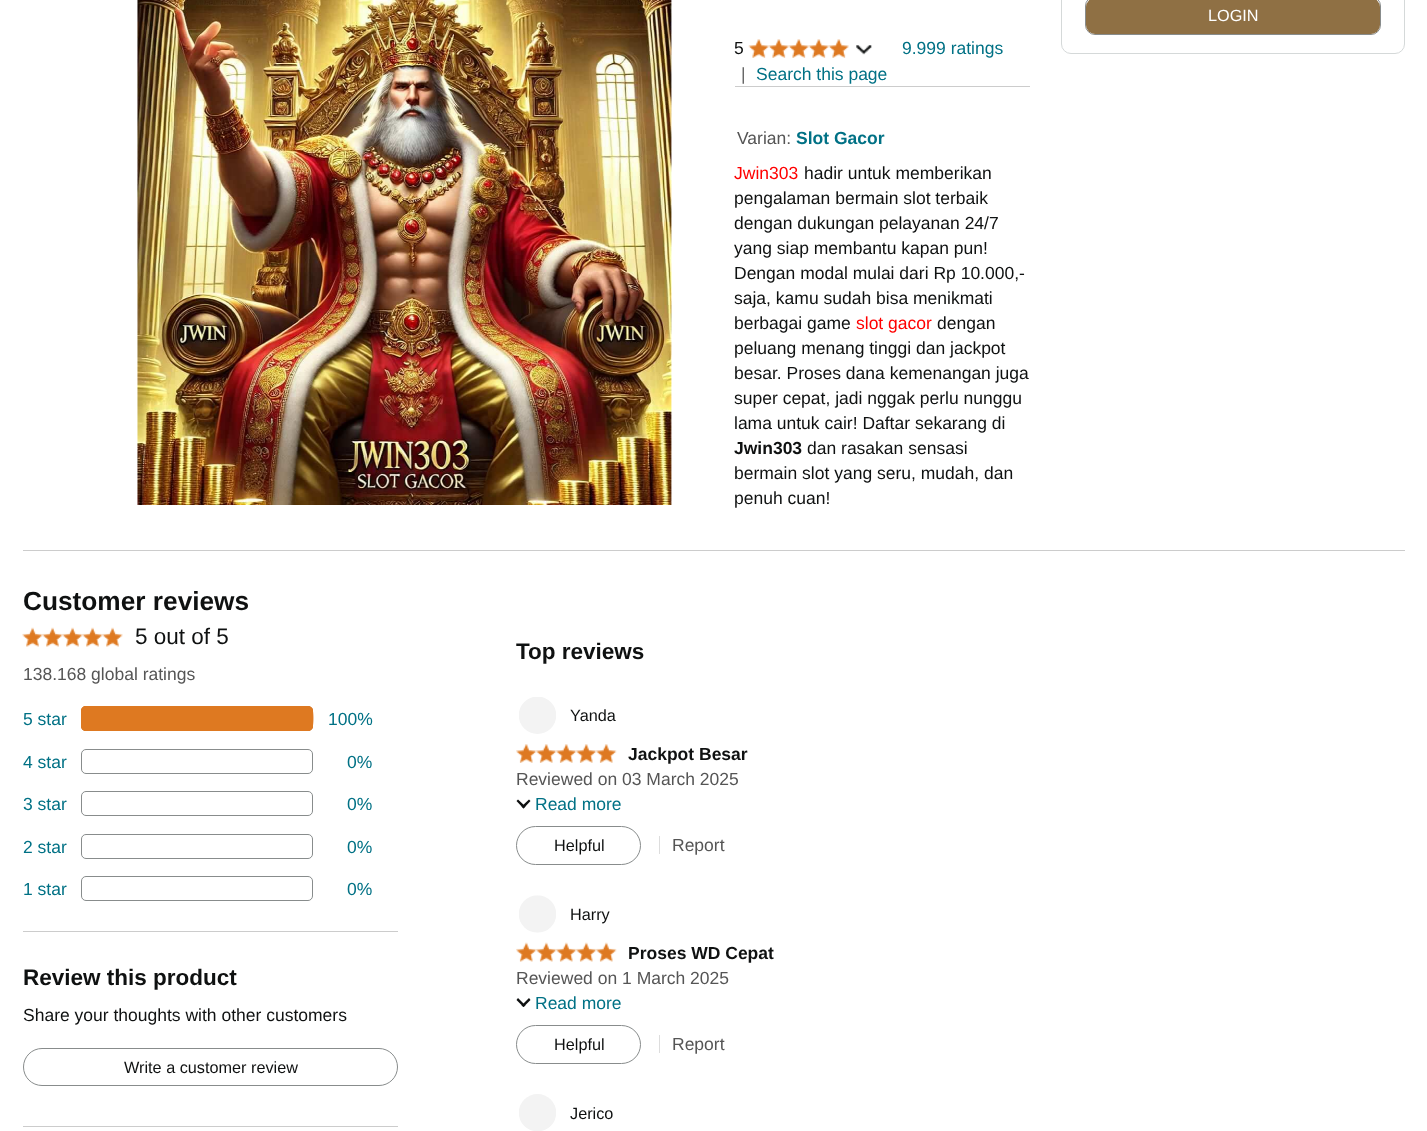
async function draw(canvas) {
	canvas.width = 1427;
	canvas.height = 1131;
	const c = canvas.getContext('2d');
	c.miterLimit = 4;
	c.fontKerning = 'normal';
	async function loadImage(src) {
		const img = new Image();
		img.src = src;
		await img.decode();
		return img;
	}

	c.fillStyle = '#fff';
	c.fillRect(0, 0, 1427, 1131);
	c.drawImage(await loadImage('img1.png'), 137, 0, 535, 505);
	c.beginPath();
	c.roundRect(1061.5, -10.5, 343, 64, 9.5);
	c.strokeStyle = '#d5d9d9';
	c.stroke();
	c.beginPath();
	c.roundRect(1085.5, -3.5, 295, 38, 9.5);
	c.strokeStyle = '#888c8c';
	c.stroke();
	c.fillStyle = '#8f7044';
	c.beginPath();
	c.roundRect(1086, -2, 294, 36, 9);
	c.fill();
	c.font = '16.25px Liberation Sans';
	c.fillStyle = '#fff';
	c.fillText('LOGIN', 1208, 21);
	c.font = '17.5px Liberation Sans';
	c.fillStyle = '#0f1111';
	c.fillText('5', 734, 54);
	c.drawImage(await loadImage('img2.png'), 748, 39, 101, 19);
	c.drawImage(await loadImage('img3.png'), 856, 45, 16, 10);
	c.fillStyle = '#007185';
	c.fillText('9.999 ratings', 902, 54);
	c.fillStyle = '#666';
	c.fillText('|', 741, 80);
	c.fillStyle = '#007185';
	c.fillText('Search this page', 756, 80);
	c.fillStyle = '#ccc';
	c.fillRect(735, 86, 295, 1);
	c.fillStyle = '#555';
	c.fillText('Varian:', 737, 144);
	c.font = 'bold 17.5px Liberation Sans';
	c.fillStyle = '#007185';
	c.fillText('Slot Gacor', 796, 144);
	c.font = '17.5px Liberation Sans';
	c.fillStyle = '#f00';
	c.fillText('Jwin303', 734, 179);
	c.fillStyle = '#0f1111';
	for (const [text, x, y] of [
		['hadir untuk memberikan', 804, 179],
		['pengalaman bermain slot terbaik', 734, 204],
		['dengan dukungan pelayanan 24/7', 734, 229],
		['yang siap membantu kapan pun!', 734, 254],
		['Dengan modal mulai dari Rp 10.000,-', 734, 279],
		['saja, kamu sudah bisa menikmati', 734, 304],
		['berbagai game', 734, 329],
	]) {
		c.fillText(text, x, y);
	}
	c.fillStyle = '#f00';
	c.fillText('slot gacor', 856, 329);
	c.fillStyle = '#0f1111';
	for (const [text, x, y] of [
		['dengan', 937, 329],
		['peluang menang tinggi dan jackpot', 734, 354],
		['besar. Proses dana kemenangan juga', 734, 379],
		['super cepat, jadi nggak perlu nunggu', 734, 404],
		['lama untuk cair! Daftar sekarang di', 734, 429],
	]) {
		c.fillText(text, x, y);
	}
	c.font = 'bold 17.5px Liberation Sans';
	c.fillText('Jwin303', 734, 454);
	c.font = '17.5px Liberation Sans';
	for (const [text, x, y] of [
		['dan rasakan sensasi', 807, 454],
		['bermain slot yang seru, mudah, dan', 734, 479],
		['penuh cuan!', 734, 504],
	]) {
		c.fillText(text, x, y);
	}
	c.fillStyle = '#ccc';
	c.fillRect(23, 550, 1382, 1);
	c.font = 'bold 26.25px Liberation Sans';
	c.fillStyle = '#0f1111';
	c.fillText('Customer reviews', 23, 610);
	c.drawImage(await loadImage('img4.png'), 22, 627, 101, 20);
	c.font = '22.5px Liberation Sans';
	c.fillText('5 out of 5', 135, 644);
	c.font = '17.5px Liberation Sans';
	c.fillStyle = '#555';
	c.fillText('138.168 global ratings', 23, 680);
	c.fillStyle = '#007185';
	c.fillText('5 star', 23, 725);
	c.beginPath();
	c.roundRect(81.5, 706.5, 231, 24, 4.5);
	c.stroke();
	c.fillStyle = '#de7921';
	c.beginPath();
	c.roundRect(81, 706, 232, 25, 5);
	c.fill();
	c.beginPath();
	c.moveTo(86, 706);
	c.bezierCurveTo(83, 706, 81, 708, 81, 711);
	c.lineTo(81, 726);
	c.bezierCurveTo(81, 729, 83, 731, 86, 731);
	c.lineTo(308, 731);
	c.bezierCurveTo(309, 731, 310, 731, 311, 730);
	c.lineTo(86, 730);
	c.bezierCurveTo(84, 730, 82, 728, 82, 726);
	c.lineTo(82, 711);
	c.bezierCurveTo(82, 709, 84, 707, 86, 707);
	c.lineTo(311, 707);
	c.lineTo(308, 706);
	c.closePath();
	c.moveTo(312, 708);
	c.lineTo(312, 729);
	c.bezierCurveTo(314, 727, 314, 710, 312, 708);
	c.closePath();
	c.fill('evenodd');
	c.beginPath();
	c.moveTo(311, 730);
	c.bezierCurveTo(312, 729, 313, 727.5, 313, 726);
	c.lineTo(313, 711);
	c.bezierCurveTo(313, 709.5, 312, 708, 311, 707);
	c.closePath();
	c.fill();
	c.fillStyle = '#007185';
	c.fillText('100%', 328, 725);
	c.fillText('4 star', 23, 768);
	c.beginPath();
	c.roundRect(81.5, 749.5, 231, 24, 4.5);
	c.stroke();
	c.fillText('0%', 347, 768);
	c.fillText('3 star', 23, 810);
	c.beginPath();
	c.roundRect(81.5, 791.5, 231, 24, 4.5);
	c.stroke();
	c.fillText('0%', 347, 810);
	c.fillText('2 star', 23, 853);
	c.beginPath();
	c.roundRect(81.5, 834.5, 231, 24, 4.5);
	c.stroke();
	c.fillText('0%', 347, 853);
	c.fillText('1 star', 23, 895);
	c.beginPath();
	c.roundRect(81.5, 876.5, 231, 24, 4.5);
	c.stroke();
	c.fillText('0%', 347, 895);
	c.fillStyle = '#ccc';
	c.fillRect(23, 931, 375, 1);
	c.font = 'bold 22.5px Liberation Sans';
	c.fillStyle = '#0f1111';
	c.fillText('Review this product', 23, 985);
	c.font = '17.5px Liberation Sans';
	c.fillText('Share your thoughts with other customers', 23, 1021);
	c.beginPath();
	c.roundRect(23.5, 1048.5, 374, 37, 18.5);
	c.stroke();
	c.font = '16.25px Liberation Sans';
	c.fillText('Write a customer review', 124, 1073);
	c.fillStyle = '#ccc';
	c.fillRect(23, 1126, 375, 1);
	c.font = 'bold 22.5px Liberation Sans';
	c.fillStyle = '#0f1111';
	c.fillText('Top reviews', 516, 659);
	c.drawImage(await loadImage('img5.png'), 519, 697, 37, 37);
	c.font = '16.25px Liberation Sans';
	c.fillText('Yanda', 570, 721);
	c.drawImage(await loadImage('img6.png'), 516, 744, 101, 19);
	c.font = 'bold 17.5px Liberation Sans';
	c.fillText('Jackpot Besar', 628, 760);
	c.font = '17.5px Liberation Sans';
	c.fillStyle = '#555';
	c.fillText('Reviewed on 03 March 2025', 516, 785);
	c.fillStyle = '#0f1111';
	c.beginPath();
	c.moveTo(529, 799.5);
	c.lineTo(530.5, 801);
	c.lineTo(523.5, 808.5);
	c.lineTo(521.5, 806.5);
	c.closePath();
	c.fill();
	c.beginPath();
	c.moveTo(518, 799.5);
	c.lineTo(525.5, 806.5);
	c.lineTo(523.5, 808.5);
	c.lineTo(516.5, 801);
	c.closePath();
	c.fill();
	c.fillStyle = '#007185';
	c.fillText('Read more', 535, 810);
	c.beginPath();
	c.roundRect(516.5, 826.5, 124, 38, 19);
	c.stroke();
	c.font = '16.25px Liberation Sans';
	c.fillStyle = '#0f1111';
	c.fillText('Helpful', 554, 851);
	c.fillStyle = '#ddd';
	c.fillRect(659, 836, 1, 18);
	c.font = '17.5px Liberation Sans';
	c.fillStyle = '#555';
	c.fillText('Report', 672, 851);
	c.drawImage(await loadImage('img7.png'), 519, 895, 37, 38);
	c.font = '16.25px Liberation Sans';
	c.fillStyle = '#0f1111';
	c.fillText('Harry', 570, 920);
	c.drawImage(await loadImage('img8.png'), 516, 942, 101, 20);
	c.font = 'bold 17.5px Liberation Sans';
	c.fillText('Proses WD Cepat', 628, 959);
	c.font = '17.5px Liberation Sans';
	c.fillStyle = '#555';
	c.fillText('Reviewed on 1 March 2025', 516, 984);
	c.fillStyle = '#0f1111';
	c.beginPath();
	c.moveTo(529, 998);
	c.lineTo(530.5, 1000);
	c.lineTo(523.5, 1007);
	c.lineTo(521.5, 1005.5);
	c.closePath();
	c.fill();
	c.beginPath();
	c.moveTo(518, 998);
	c.lineTo(525.5, 1005.5);
	c.lineTo(523.5, 1007);
	c.lineTo(516.5, 1000);
	c.closePath();
	c.fill();
	c.fillStyle = '#007185';
	c.fillText('Read more', 535, 1009);
	c.beginPath();
	c.roundRect(516.5, 1025.5, 124, 38, 19);
	c.stroke();
	c.font = '16.25px Liberation Sans';
	c.fillStyle = '#0f1111';
	c.fillText('Helpful', 554, 1050);
	c.fillStyle = '#ddd';
	c.fillRect(659, 1035, 1, 18);
	c.font = '17.5px Liberation Sans';
	c.fillStyle = '#555';
	c.fillText('Report', 672, 1050);
	c.drawImage(await loadImage('img9.png'), 519, 1094, 37, 37);
	c.font = '16.25px Liberation Sans';
	c.fillStyle = '#0f1111';
	c.fillText('Jerico', 570, 1119);
}

draw(document.querySelector('canvas'));
